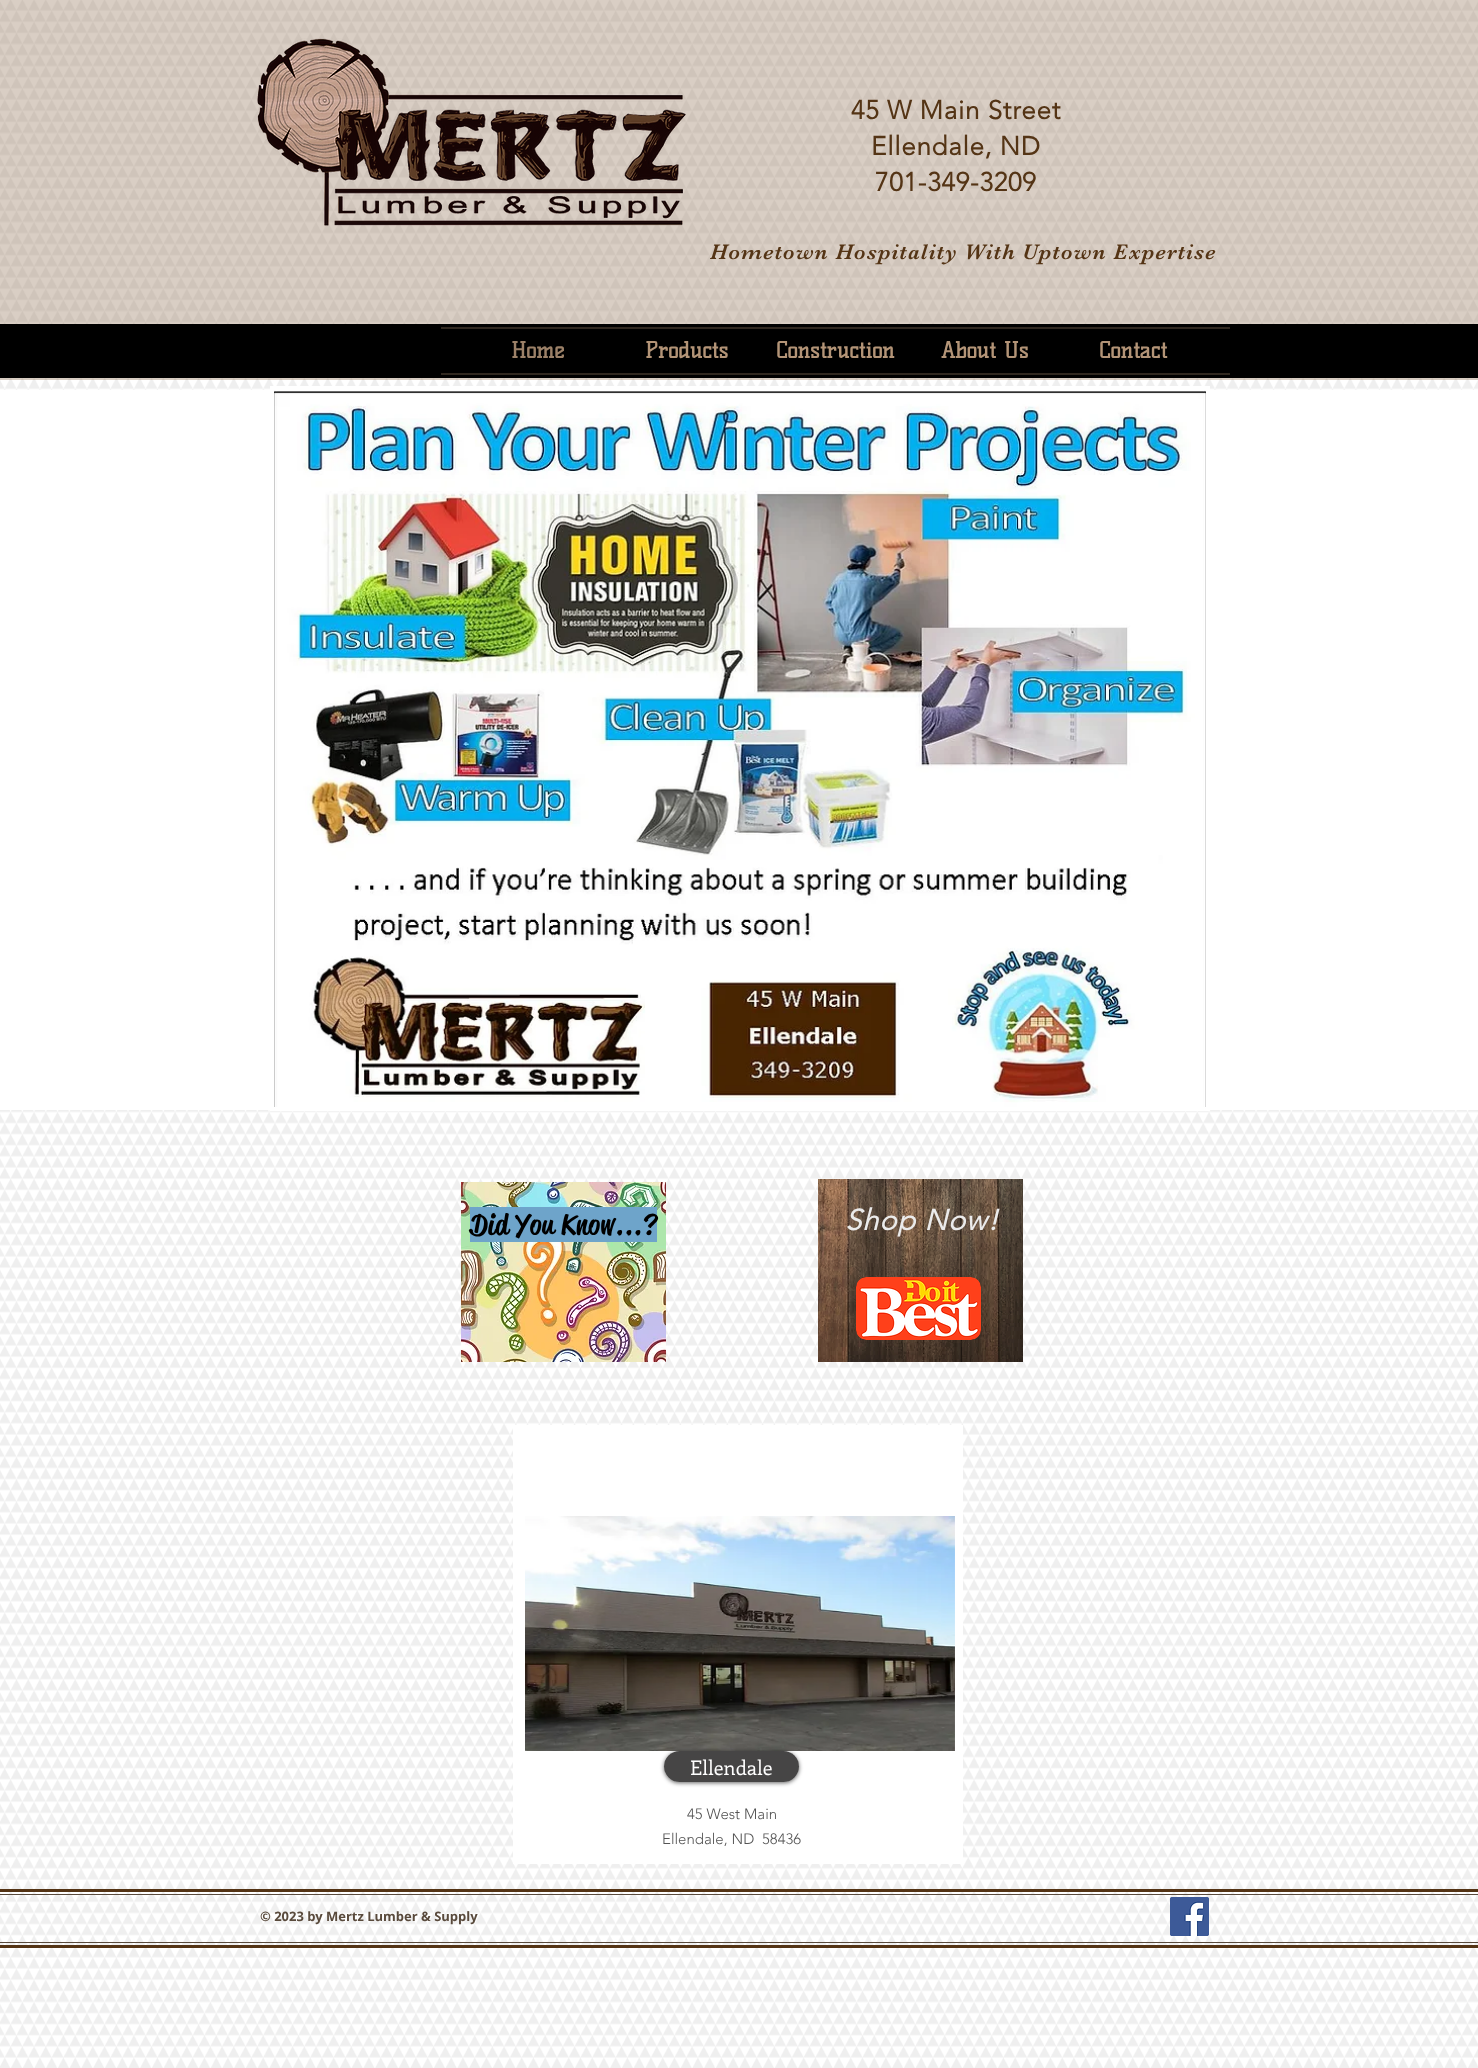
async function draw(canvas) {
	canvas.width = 1478;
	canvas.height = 2068;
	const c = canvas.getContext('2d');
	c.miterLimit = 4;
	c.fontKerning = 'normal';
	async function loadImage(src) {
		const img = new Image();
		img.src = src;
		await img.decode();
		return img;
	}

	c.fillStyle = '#fff';
	c.fillRect(0, 0, 1478, 2068);
	c.drawImage(await loadImage('img1.png'), 0, 0, 1478, 2068);
	c.fillStyle = '#9c816863';
	c.fillRect(0, 0, 1478, 380);
	c.drawImage(await loadImage('img2.png'), 257, 38, 429, 188);
	c.letterSpacing = '0.75px';
	c.font = 'bold 26px "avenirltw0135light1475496"';
	c.fillStyle = '#543415';
	for (const [text, x, y] of [
		['45 W Main Street', 851, 119],
		['Ellendale, ND', 871, 155],
		['701-349-3209', 875, 191],
	]) {
		c.fillText(text, x, y);
	}
	c.letterSpacing = '1.1px';
	c.font = '22px "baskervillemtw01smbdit"';
	c.fillText('Hometown Hospitality With Uptown Expertise', 710, 259);
	for (const [x, y, w, h, color] of [
		[0, 324, 1478, 54, '#000'],
		[441, 327, 789, 2, '#302820'],
		[441, 373, 789, 2, '#302820'],
	]) {
		c.fillStyle = color;
		c.fillRect(x, y, w, h);
	}
	c.letterSpacing = '0px';
	c.font = 'bold 22px Kelly Slab';
	c.fillStyle = '#9c8168';
	c.fillText('Home', 511, 358);
	c.fillStyle = '#b39477';
	for (const [text, x, y] of [
		['Products', 645, 358],
		['Construction', 776, 358],
		['About Us', 941, 358],
		['Contact', 1099, 358],
	]) {
		c.fillText(text, x, y);
	}
	c.fillStyle = '#fff';
	c.fillRect(0, 390, 1478, 720);
	c.fillRect(270, 386, 940, 725);
	c.drawImage(await loadImage('img3.png'), 274, 390, 932, 717);
	c.drawImage(await loadImage('img4.png'), 461, 1182, 205, 180);
	c.fillStyle = '#6ea4ca';
	c.fillRect(470, 1207, 187, 35);
	c.letterSpacing = '0.5px';
	c.font = '500 28px "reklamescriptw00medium"';
	c.fillStyle = '#000';
	c.fillText('Did You Know...?', 470, 1234);
	c.drawImage(await loadImage('img5.png'), 818, 1179, 205, 183);
	c.letterSpacing = '0.9px';
	c.font = 'italic bold 29px "avenirltw0135light1475496"';
	c.fillStyle = '#ebebeb';
	c.fillText('Shop Now!', 845, 1230);
	c.drawImage(await loadImage('img6.png'), 856, 1277, 125, 63);
	c.fillStyle = '#fff';
	c.fillRect(513, 1425, 450, 439);
	c.drawImage(await loadImage('img7.png'), 525, 1516, 430, 235);
	c.save();
	c.beginPath();
	c.moveTo(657, 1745);
	c.lineTo(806, 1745);
	c.lineTo(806, 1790);
	c.lineTo(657, 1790);
	c.closePath();
	c.moveTo(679.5, 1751);
	c.lineTo(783.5, 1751);
	c.bezierCurveTo(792, 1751, 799, 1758, 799, 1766.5);
	c.bezierCurveTo(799, 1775, 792, 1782, 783.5, 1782);
	c.lineTo(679.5, 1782);
	c.bezierCurveTo(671, 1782, 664, 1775, 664, 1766.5);
	c.bezierCurveTo(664, 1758, 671, 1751, 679.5, 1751);
	c.closePath();
	c.clip('evenodd');
	c.fillStyle = '#00000099';
	c.filter = 'blur(2px)';
	c.beginPath();
	c.roundRect(664, 1752, 135, 31, 15.5);
	c.fill();
	c.filter = 'none';
	c.restore();
	c.fillStyle = '#2f2e2ee3';
	c.beginPath();
	c.roundRect(664, 1751, 135, 31, 15.5);
	c.fill();
	c.letterSpacing = '0px';
	c.font = '20px Enriqueta';
	c.fillStyle = '#fff';
	c.fillText('Ellendale', 690, 1775);
	c.font = '300 15px "avenirltw0135light1475496"';
	c.fillStyle = '#545454';
	c.fillText('45 West Main', 687, 1819);
	c.fillText('Ellendale, ND  58436', 662, 1844);
	for (const [x, y, w, h, color] of [
		[0, 1889, 1478, 3, '#543415'],
		[0, 1945, 1478, 3, '#543415'],
		[0, 1894, 1478, 1, '#594a3c'],
		[0, 1942, 1478, 1, '#594a3c'],
	]) {
		c.fillStyle = color;
		c.fillRect(x, y, w, h);
	}
	c.font = 'bold 13px Open Sans';
	c.fillText('© 2023 by Mertz Lumber & Supply', 260, 1921);
	c.drawImage(await loadImage('img8.png'), 1170, 1897, 39, 39);
}

draw(document.querySelector('canvas'));
